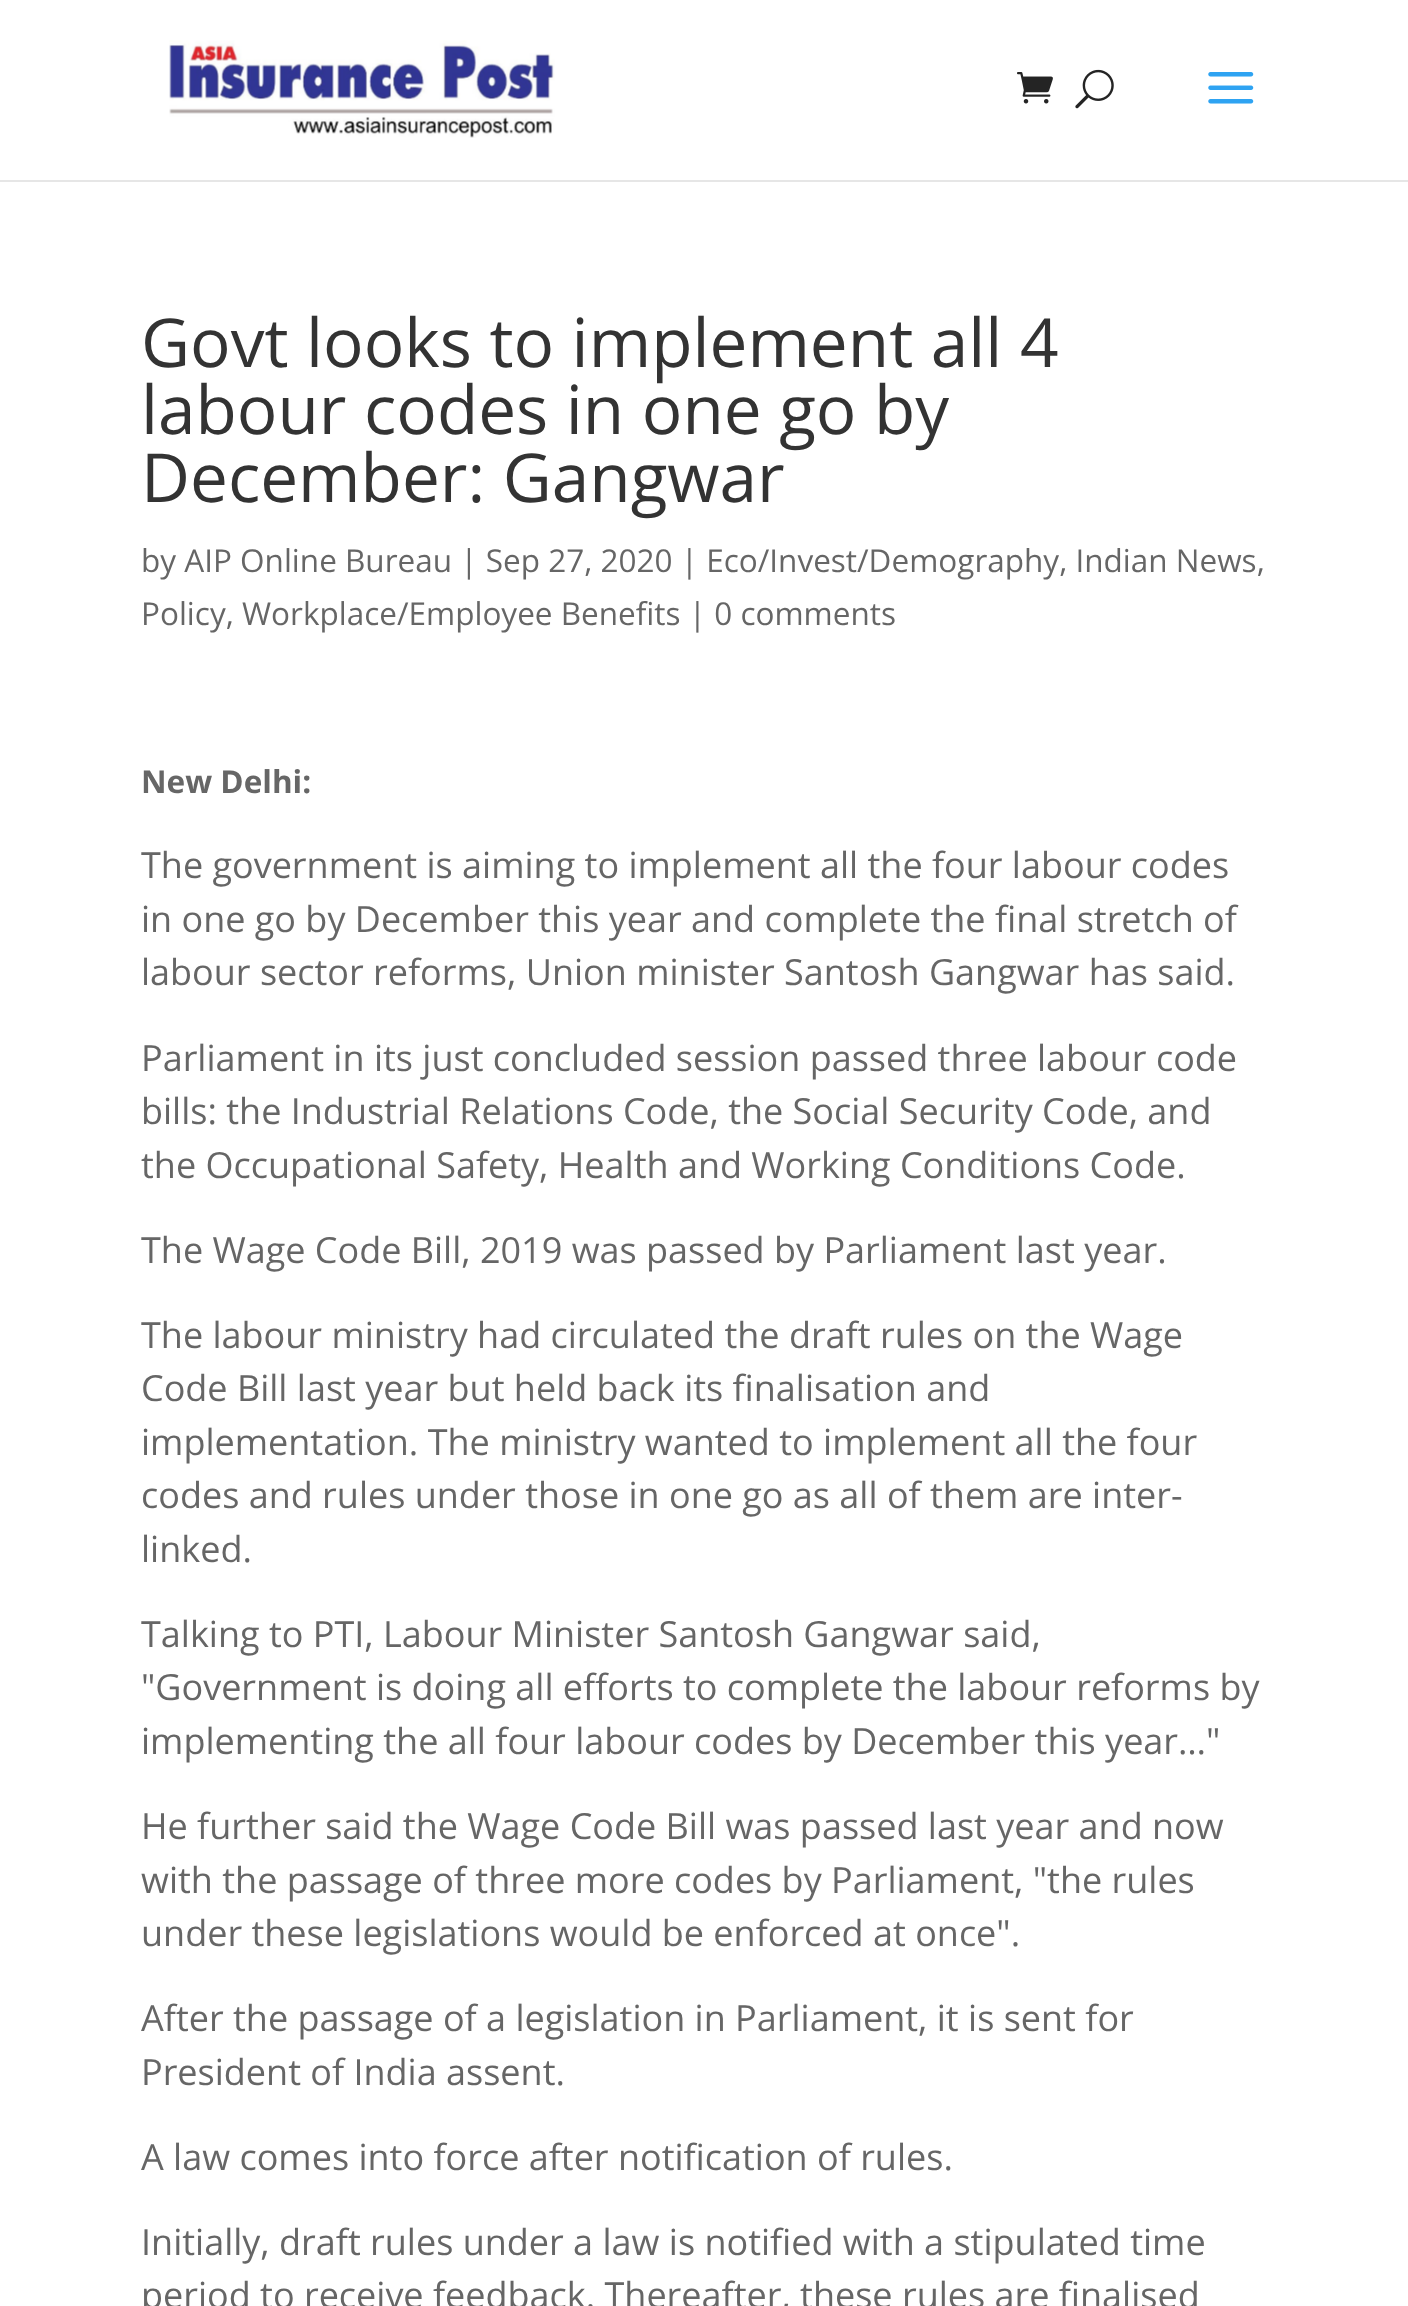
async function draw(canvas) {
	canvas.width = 1408;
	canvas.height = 2306;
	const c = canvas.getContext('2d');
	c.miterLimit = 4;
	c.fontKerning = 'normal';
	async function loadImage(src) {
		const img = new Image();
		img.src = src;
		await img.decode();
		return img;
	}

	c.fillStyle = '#fff';
	c.fillRect(0, 0, 1408, 2306);
	c.fillStyle = '#e6e6e6';
	c.beginPath();
	c.moveTo(0, 180);
	c.lineTo(0, 182);
	c.lineTo(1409, 182);
	c.lineTo(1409, 2);
	c.lineTo(1408, 2);
	c.lineTo(1408, 180);
	c.closePath();
	c.fill();
	c.drawImage(await loadImage('img1.png'), 169, 40, 386, 98);
	c.drawImage(await loadImage('img2.png'), 1017, 72, 36, 32);
	c.drawImage(await loadImage('img3.png'), 1075, 69, 39, 40);
	c.drawImage(await loadImage('img4.png'), 1208, 72, 46, 32);
	c.font = '67.5px Open Sans';
	c.fillStyle = '#333';
	for (const [text, x, y] of [
		['Govt looks to implement all 4', 141, 367],
		['labour codes in one go by', 141, 434],
		['December: Gangwar', 141, 502],
	]) {
		c.fillText(text, x, y);
	}
	c.font = '31.5px Open Sans';
	c.fillStyle = '#666';
	c.fillText('by AIP Online Bureau | Sep 27, 2020 | Eco/Invest/Demography, Indian News,', 141, 572);
	c.fillText('Policy, Workplace/Employee Benefits | 0 comments', 141, 625);
	c.font = 'bold 31.5px Open Sans';
	c.fillText('New Delhi:', 141, 793);
	c.font = '36px Open Sans';
	for (const [text, x, y] of [
		['The government is aiming to implement all the four labour codes', 141, 878],
		['in one go by December this year and complete the final stretch of', 141, 932],
		['labour sector reforms, Union minister Santosh Gangwar has said.', 141, 985],
		['Parliament in its just concluded session passed three labour code', 141, 1071],
		['bills: the Industrial Relations Code, the Social Security Code, and', 141, 1124],
		['the Occupational Safety, Health and Working Conditions Code.', 141, 1178],
		['The Wage Code Bill, 2019 was passed by Parliament last year.', 141, 1263],
		['The labour ministry had circulated the draft rules on the Wage', 141, 1348],
		['Code Bill last year but held back its finalisation and', 141, 1401],
		['implementation. The ministry wanted to implement all the four', 141, 1455],
		['codes and rules under those in one go as all of them are inter-', 141, 1508],
		['linked.', 141, 1562],
		['Talking to PTI, Labour Minister Santosh Gangwar said,', 141, 1647],
		['"Government is doing all efforts to complete the labour reforms by', 141, 1700],
		['implementing the all four labour codes by December this year…"', 141, 1754],
		['He further said the Wage Code Bill was passed last year and now', 141, 1839],
		['with the passage of three more codes by Parliament, "the rules', 141, 1893],
		['under these legislations would be enforced at once".', 141, 1946],
		['After the passage of a legislation in Parliament, it is sent for', 141, 2031],
		['President of India assent.', 141, 2085],
		['A law comes into force after notification of rules.', 141, 2170],
		['Initially, draft rules under a law is notified with a stipulated time', 141, 2255],
		['period to receive feedback. Thereafter, these rules are finalised', 141, 2308],
	]) {
		c.fillText(text, x, y);
	}
}

draw(document.querySelector('canvas'));
